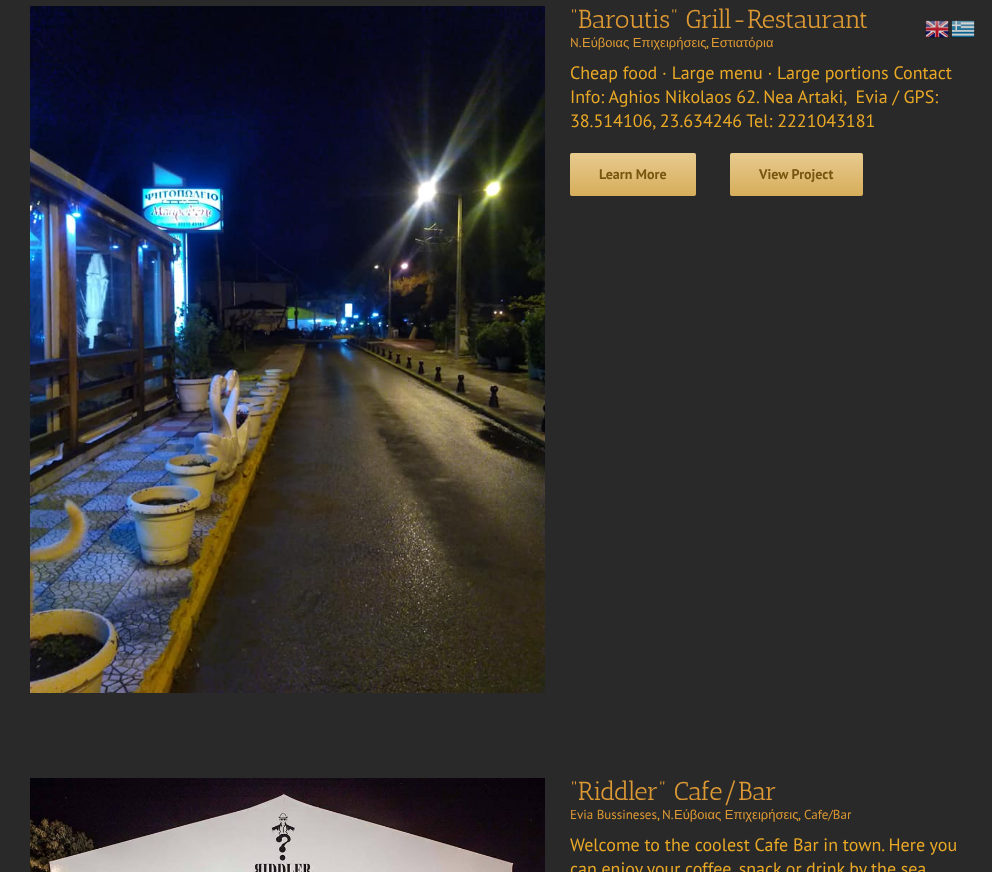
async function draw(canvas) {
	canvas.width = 992;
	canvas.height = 872;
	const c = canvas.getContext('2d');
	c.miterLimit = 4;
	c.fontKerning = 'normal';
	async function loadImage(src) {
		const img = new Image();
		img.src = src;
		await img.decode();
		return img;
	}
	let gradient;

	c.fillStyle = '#29292a';
	c.fillRect(0, 0, 992, 872);
	c.drawImage(await loadImage('img1.png'), 30, 6, 515, 687);
	c.font = '26px Antic Slab';
	c.fillStyle = '#d93';
	c.fillText('“Baroutis” Grill-Restaurant', 570, 28);
	c.font = '13px PT Sans';
	c.fillText('N.', 570, 47);
	c.font = '13px Liberation Sans';
	c.fillText('Εύβοιας Επιχειρήσεις', 582, 47);
	c.font = '13px PT Sans';
	c.fillStyle = '#e9a825';
	c.fillText(',', 706, 47);
	c.font = '13px Liberation Sans';
	c.fillStyle = '#d93';
	c.fillText('Εστιατόρια', 711, 47);
	c.font = '18px PT Sans';
	c.fillStyle = '#e9a825';
	for (const [text, x, y] of [
		['Cheap food · Large menu · Large portions Contact', 570, 79],
		['Info: Aghios Nikolaos 62. Nea Artaki,  Evia / GPS:', 570, 103],
		['38.514106, 23.634246 Tel: 2221043181', 570, 127],
	]) {
		c.fillText(text, x, y);
	}
	gradient = c.createLinearGradient(633, 153, 633, 196);
	gradient.addColorStop(0, '#e8cb90');
	gradient.addColorStop(1, '#d6ad5a');
	c.fillStyle = gradient;
	c.beginPath();
	c.roundRect(570, 153, 126, 43, 2);
	c.fill();
	c.font = 'bold 14px PT Sans';
	c.fillStyle = '#785510';
	c.fillText('Learn More', 599, 179);
	gradient = c.createLinearGradient(797, 153, 797, 196);
	gradient.addColorStop(0, '#e8cb90');
	gradient.addColorStop(1, '#d6ad5a');
	c.fillStyle = gradient;
	c.beginPath();
	c.roundRect(730, 153, 133, 43, 2);
	c.fill();
	c.fillStyle = '#785510';
	c.fillText('View Project', 759, 179);
	c.drawImage(await loadImage('img2.png'), 30, 778, 515, 94);
	c.font = '26px Antic Slab';
	c.fillStyle = '#d93';
	c.fillText('“Riddler” Cafe/Bar', 570, 800);
	c.font = '13px PT Sans';
	c.fillText('Evia Bussineses', 570, 819);
	c.fillStyle = '#e9a825';
	c.fillText(',', 657, 819);
	c.fillStyle = '#d93';
	c.fillText('N.', 662, 819);
	c.font = '13px Liberation Sans';
	c.fillText('Εύβοιας Επιχειρήσεις', 674, 819);
	c.font = '13px PT Sans';
	c.fillStyle = '#e9a825';
	c.fillText(',', 798, 819);
	c.fillStyle = '#d93';
	c.fillText('Cafe/Bar', 804, 819);
	c.font = '18px PT Sans';
	c.fillStyle = '#e9a825';
	c.fillText('Welcome to the coolest Cafe Bar in town. Here you', 570, 851);
	c.wordSpacing = '-0.25px';
	c.fillText('can enjoy your coffee, snack or drink by the sea', 570, 875);
	c.drawImage(await loadImage('img3.png'), 925, 20, 24, 18);
	c.drawImage(await loadImage('img4.png'), 951, 20, 24, 18);
}

draw(document.querySelector('canvas'));
